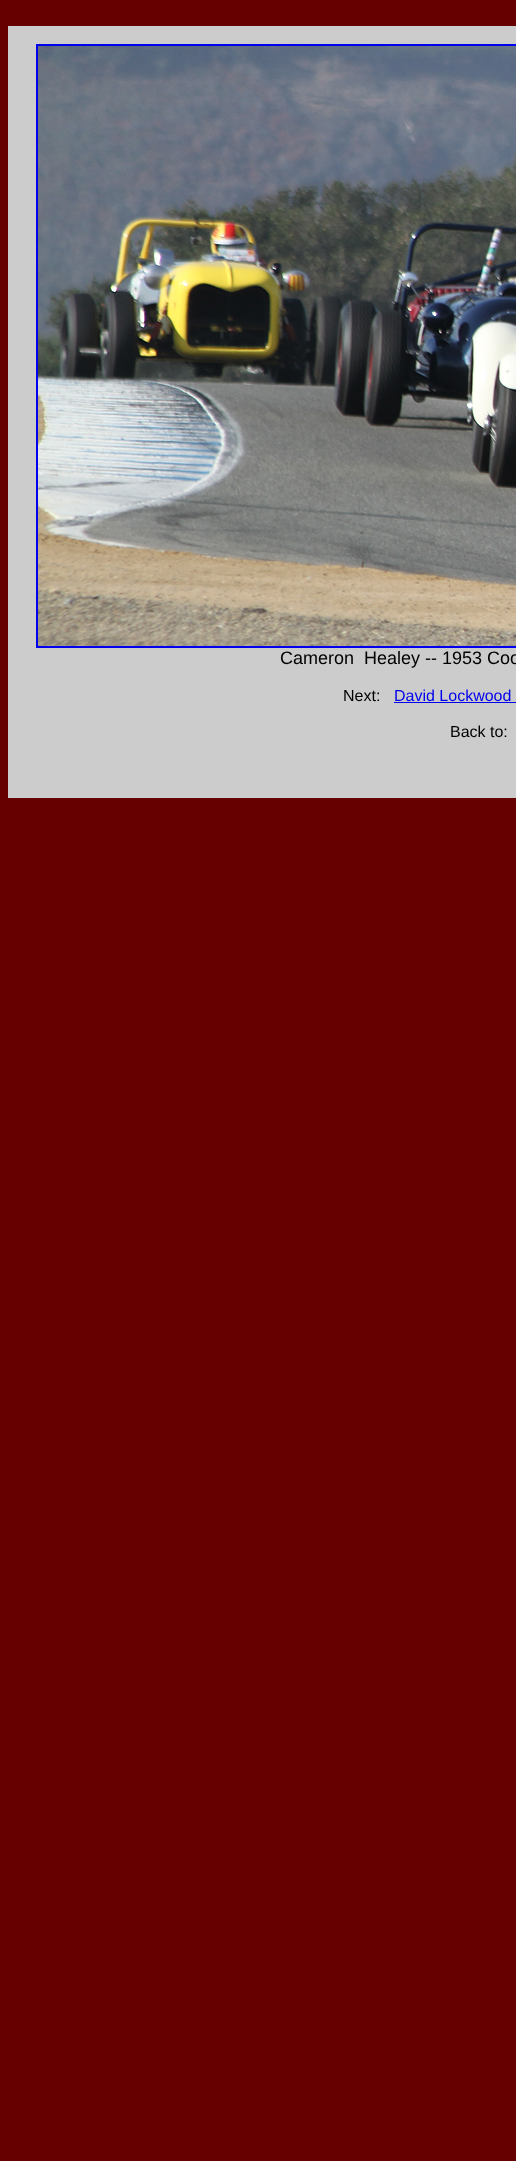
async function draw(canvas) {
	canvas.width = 516;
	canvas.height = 2161;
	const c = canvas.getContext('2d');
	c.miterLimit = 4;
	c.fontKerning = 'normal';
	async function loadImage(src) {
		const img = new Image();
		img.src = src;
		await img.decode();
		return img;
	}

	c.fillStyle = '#600';
	c.fillRect(0, 0, 516, 2161);
	c.fillStyle = '#ccc';
	c.fillRect(8, 26, 508, 772);
	c.strokeStyle = '#00e';
	c.lineWidth = 2;
	c.strokeRect(37, 45, 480, 602);
	c.drawImage(await loadImage('img1.png'), 38, 46, 478, 600);
	c.font = '18px Liberation Sans';
	c.fillStyle = '#000';
	c.fillText('Cameron  Healey -- 1953 Coo', 280, 664);
	c.font = '16px Liberation Sans';
	c.fillText('Next:', 343, 701);
	c.fillStyle = '#00e';
	c.fillText('David Lockwood', 394, 701);
	c.fillRect(394, 702, 122, 1);
	c.fillStyle = '#000';
	c.fillText('Back to:', 450, 737);
}

draw(document.querySelector('canvas'));
